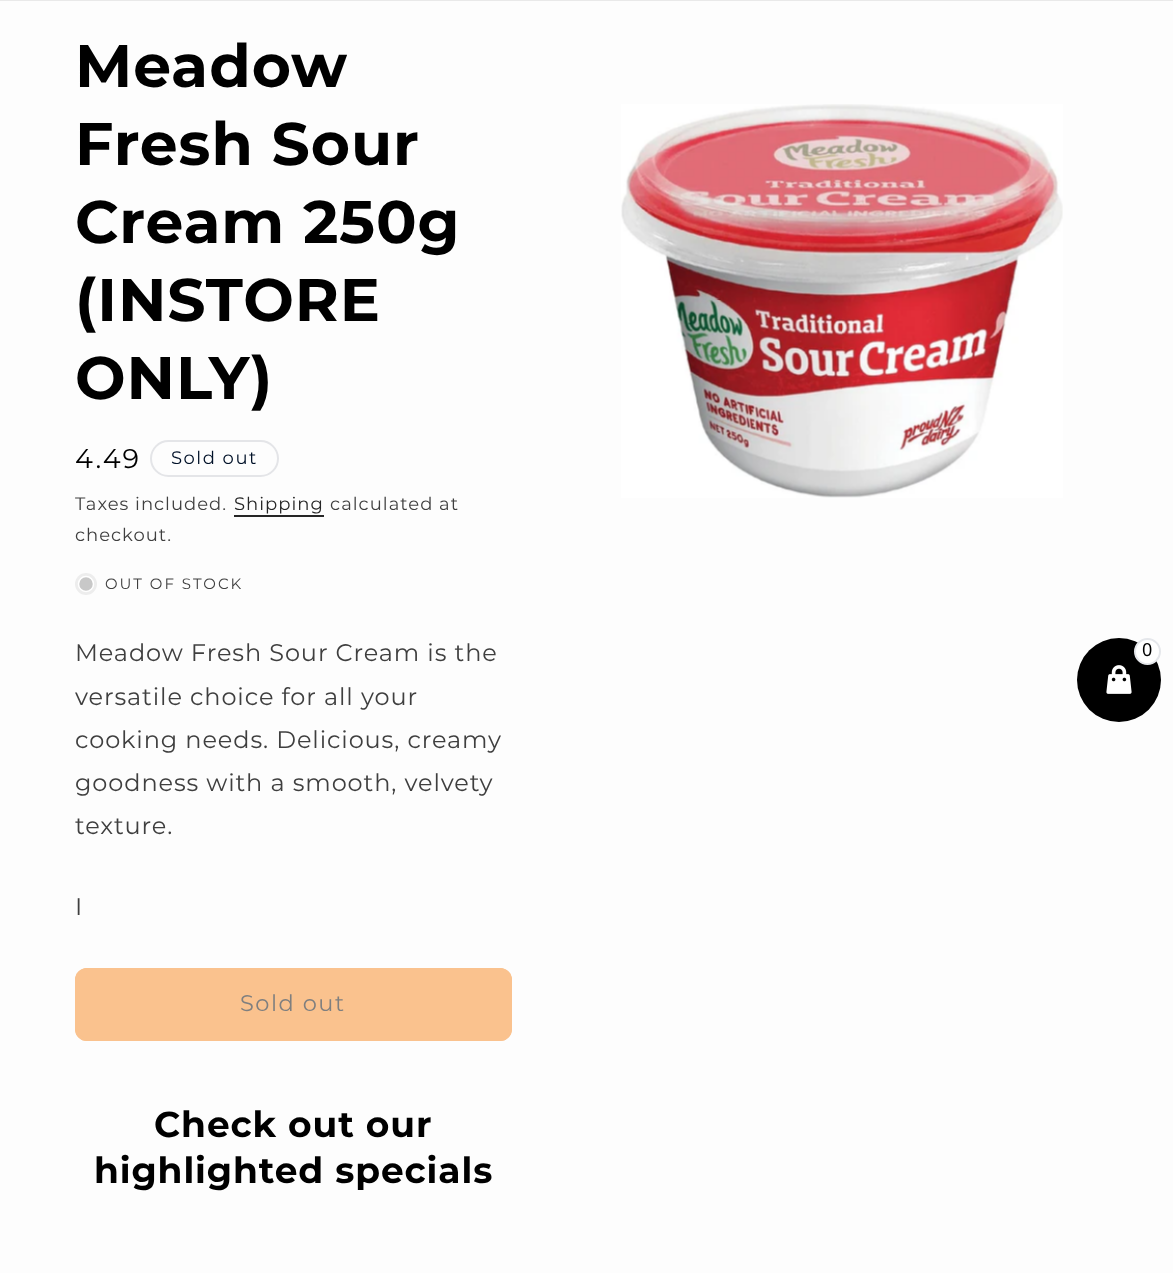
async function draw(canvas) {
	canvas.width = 1173;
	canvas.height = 1273;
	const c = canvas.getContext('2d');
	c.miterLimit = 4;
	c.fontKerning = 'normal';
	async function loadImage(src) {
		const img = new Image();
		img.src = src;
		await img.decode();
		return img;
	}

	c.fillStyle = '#fdfdfd';
	c.fillRect(0, 0, 1173, 1273);
	c.fillStyle = '#e9e9e9';
	c.fillRect(0, 0, 1173, 1);
	c.letterSpacing = '0.9px';
	c.font = 'bold 60px Montserrat';
	c.fillStyle = '#000';
	for (const [text, x, y] of [
		['Meadow', 75, 87],
		['Fresh Sour', 75, 165],
		['Cream 250g', 75, 243],
		['(INSTORE', 75, 321],
		['ONLY)', 75, 399],
	]) {
		c.fillText(text, x, y);
	}
	c.letterSpacing = '2px';
	c.font = '27px Montserrat';
	c.fillText('4.49', 75, 468);
	c.beginPath();
	c.roundRect(151, 441, 127, 35, 17.5);
	c.strokeStyle = '#e4e5e8';
	c.lineWidth = 2;
	c.stroke();
	c.letterSpacing = '1.5px';
	c.font = '18px Montserrat';
	c.fillStyle = '#001128';
	c.fillText('Sold out', 171, 464);
	c.letterSpacing = '1px';
	c.fillStyle = '#3f3f3f';
	c.fillText('Taxes included.', 75, 510);
	c.fillStyle = '#262626';
	c.fillText('Shipping', 234, 510);
	c.fillRect(234, 515, 90, 2);
	c.fillStyle = '#3f3f3f';
	c.fillText('calculated at', 330, 510);
	c.fillText('checkout.', 75, 541);
	c.fillStyle = '#ededed';
	c.beginPath();
	c.arc(86, 584, 11, 0, 2 * Math.PI);
	c.fill();
	c.fillStyle = '#c8c8c8';
	c.beginPath();
	c.arc(86, 584, 7.5, 0, 2 * Math.PI);
	c.fill();
	c.strokeStyle = '#fff';
	c.lineWidth = 1.5;
	c.stroke();
	c.letterSpacing = '2px';
	c.font = '15px Montserrat';
	c.fillStyle = '#3f3f3f';
	c.fillText('OUT OF STOCK', 105, 589);
	c.letterSpacing = '0.9px';
	c.font = '24px Montserrat';
	for (const [text, x, y] of [
		['Meadow Fresh Sour Cream is the', 75, 661],
		['versatile choice for all your', 75, 705],
		['cooking needs. Delicious, creamy', 75, 748],
		['goodness with a smooth, velvety', 75, 791],
		['texture.', 75, 834],
		['I', 75, 915],
	]) {
		c.fillText(text, x, y);
	}
	c.fillStyle = '#fac28e';
	c.beginPath();
	c.roundRect(75, 968, 437, 73, 12);
	c.fill();
	c.beginPath();
	c.roundRect(76.5, 969.5, 434, 70, 10.5);
	c.strokeStyle = '#fac28e';
	c.lineWidth = 3;
	c.stroke();
	c.letterSpacing = '1.5px';
	c.font = '22.5px Montserrat';
	c.fillStyle = '#7f7f7f';
	c.fillText('Sold out', 240, 1011);
	c.letterSpacing = '0.9px';
	c.font = 'bold 36px Montserrat';
	c.fillStyle = '#000';
	c.fillText('Check out our', 154, 1137);
	c.fillText('highlighted specials', 94, 1183);
	c.drawImage(await loadImage('img1.png'), 621, 104, 442, 394);
	c.beginPath();
	c.arc(1119, 680, 42, 0, 2 * Math.PI);
	c.fill();
	c.fillStyle = '#fff';
	c.beginPath();
	c.arc(1147.5, 651.5, 12.5, 0, 2 * Math.PI);
	c.fill();
	c.strokeStyle = '#e5e7eb';
	c.lineWidth = 2;
	c.stroke();
	c.font = '18px Noto Sans';
	c.fillStyle = '#000';
	c.fillText('0', 1142, 656);
	c.drawImage(await loadImage('img2.png'), 1106, 665, 26, 29);
}

draw(document.querySelector('canvas'));
